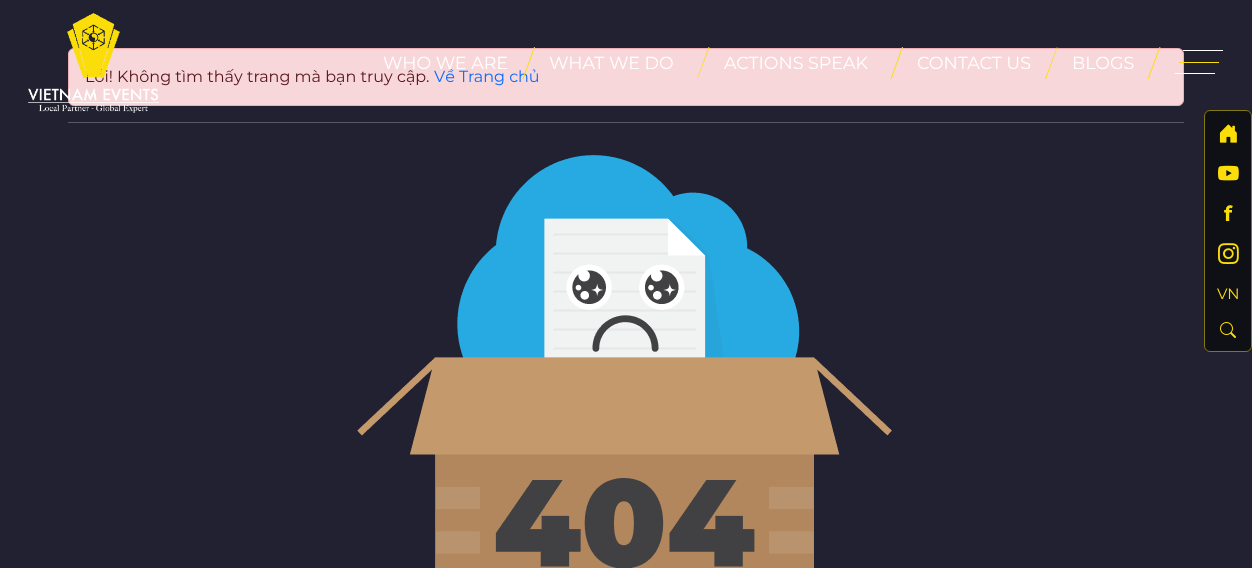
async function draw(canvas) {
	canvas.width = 1252;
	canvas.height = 568;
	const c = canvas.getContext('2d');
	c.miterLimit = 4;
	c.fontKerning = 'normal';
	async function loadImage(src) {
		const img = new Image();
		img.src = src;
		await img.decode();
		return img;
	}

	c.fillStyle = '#222131';
	c.fillRect(0, 0, 1252, 568);
	c.fillStyle = '#f8d7da';
	c.beginPath();
	c.roundRect(68.5, 48.5, 1115, 57, 5.5);
	c.fill();
	c.strokeStyle = '#f1aeb5';
	c.stroke();
	c.font = '16px Montserrat';
	c.fillStyle = '#58151c';
	c.fillText('Lỗi! Không tìm thấy trang mà bạn truy cập.', 85, 82);
	c.drawImage(await loadImage('img1.png'), 28, 13, 131, 100);
	c.font = '17.5px Montserrat';
	c.fillStyle = '#fff';
	c.fillText('WHO WE ARE', 383, 69);
	c.font = '16px Montserrat';
	c.fillStyle = '#0d6efd';
	c.fillText('Về Trang chủ', 434, 82);
	c.fillStyle = '#fbdd0a';
	c.beginPath();
	c.moveTo(534, 47);
	c.lineTo(535, 47);
	c.lineTo(523.5, 79);
	c.lineTo(522.5, 79);
	c.closePath();
	c.fill();
	c.font = '17.5px Montserrat';
	c.fillStyle = '#fff';
	c.fillText('WHAT WE DO', 549, 69);
	c.fillStyle = '#fbdd0a';
	c.beginPath();
	c.moveTo(708.5, 47);
	c.lineTo(709.5, 47);
	c.lineTo(697.5, 79);
	c.lineTo(697, 79);
	c.closePath();
	c.fill();
	c.fillStyle = '#fff';
	c.fillText('ACTIONS SPEAK', 724, 69);
	c.fillStyle = '#fbdd0a';
	c.beginPath();
	c.moveTo(902, 47);
	c.lineTo(903, 47);
	c.lineTo(891.5, 79);
	c.lineTo(890.5, 79);
	c.closePath();
	c.fill();
	c.fillStyle = '#fff';
	c.fillText('CONTACT US', 917, 69);
	c.fillStyle = '#fbdd0a';
	c.beginPath();
	c.moveTo(1057, 47);
	c.lineTo(1057.5, 47);
	c.lineTo(1046, 79);
	c.lineTo(1045, 79);
	c.closePath();
	c.fill();
	c.fillStyle = '#fff';
	c.fillText('BLOGS', 1072, 69);
	c.fillStyle = '#fbdd0a';
	c.beginPath();
	c.moveTo(1159.5, 47);
	c.lineTo(1160.5, 47);
	c.lineTo(1148.5, 79);
	c.lineTo(1147.5, 79);
	c.closePath();
	c.fill();
	for (const [x, y, w, h, color] of [
		[1183, 50, 40, 1, '#fff'],
		[1179, 62, 40, 1, '#fbdd0a'],
		[1175, 73, 40, 1, '#fff'],
		[68, 122, 1116, 1, '#595965'],
	]) {
		c.fillStyle = color;
		c.fillRect(x, y, w, h);
	}
	c.drawImage(await loadImage('img2.png'), 357, 155, 535, 413);
	c.fillStyle = '#0f0f16';
	c.beginPath();
	c.roundRect(1204, 110, 48, 242, 6);
	c.fill();
	c.beginPath();
	c.roundRect(1204.5, 110.5, 47, 241, 5.5);
	c.strokeStyle = '#f8e00d80';
	c.stroke();
	c.drawImage(await loadImage('img3.png'), 1219, 124, 18, 19);
	c.drawImage(await loadImage('img4.png'), 1218, 165, 21, 16);
	c.font = 'bold 21px Montserrat';
	c.fillStyle = '#fbdd0a';
	c.fillText('f', 1224, 221);
	c.drawImage(await loadImage('img5.png'), 1218, 243, 21, 21);
	c.font = '15px Montserrat';
	c.fillText('VN', 1217, 299);
	c.drawImage(await loadImage('img6.png'), 1220, 322, 16, 16);
}

draw(document.querySelector('canvas'));
